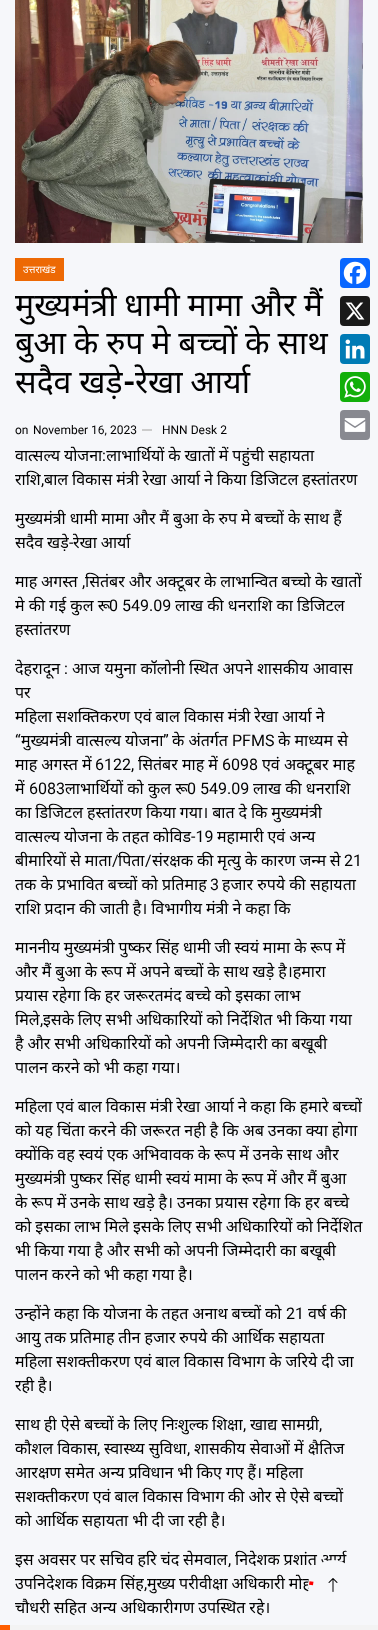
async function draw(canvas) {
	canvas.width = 378;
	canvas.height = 1630;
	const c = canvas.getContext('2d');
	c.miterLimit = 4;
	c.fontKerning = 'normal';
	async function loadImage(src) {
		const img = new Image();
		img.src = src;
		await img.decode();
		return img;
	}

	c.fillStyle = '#f6f7fa';
	c.fillRect(0, 0, 378, 1630);
	c.fillStyle = '#0866ff';
	c.beginPath();
	c.roundRect(340, 258, 30, 30, 4);
	c.fill();
	c.drawImage(await loadImage('img1.png'), 343, 261, 24, 24);
	c.fillStyle = '#1a1a1a';
	c.beginPath();
	c.roundRect(340, 296, 30, 30, 4);
	c.fill();
	c.drawImage(await loadImage('img2.png'), 345, 302, 20, 18);
	c.fillStyle = '#007bb5';
	c.beginPath();
	c.roundRect(340, 334, 30, 30, 4);
	c.fill();
	c.drawImage(await loadImage('img3.png'), 345, 339, 20, 20);
	c.fillStyle = '#12af0a';
	c.beginPath();
	c.roundRect(340, 372, 30, 30, 4);
	c.fill();
	c.drawImage(await loadImage('img4.png'), 344, 376, 22, 22);
	c.fillStyle = '#888990';
	c.beginPath();
	c.roundRect(340, 410, 30, 30, 4);
	c.fill();
	c.drawImage(await loadImage('img5.png'), 344, 418, 22, 14);
	c.drawImage(await loadImage('img6.png'), 15, 0, 348, 243);
	c.fillStyle = '#ed6904';
	c.fillRect(15, 258, 49, 23);
	c.font = '10px Noto Sans';
	c.fillStyle = '#fff';
	c.fillText('उत्तराखंड', 23, 273);
	c.wordSpacing = '-0.5px';
	c.font = '32px Noto Sans';
	c.fillStyle = '#000';
	for (const [text, x, y] of [
		['मुख्यमंत्री धामी मामा और मैं', 15, 316],
		['बुआ के रुप मे बच्चों के साथ', 15, 354],
		['सदैव खड़े', 15, 393],
	]) {
		c.fillText(text, x, y);
	}
	c.wordSpacing = '0px';
	c.font = 'bold 32px Roboto';
	c.fillText('-', 123, 393);
	c.wordSpacing = '-0.5px';
	c.font = '32px Noto Sans';
	c.fillText('रेखा आर्या', 135, 393);
	c.wordSpacing = '0px';
	c.font = '12px Roboto';
	c.fillText('on', 15, 434);
	c.fillText('November 16, 2023', 33, 434);
	c.fillStyle = '#ccc';
	c.fillRect(142, 429, 10, 2);
	c.fillStyle = '#000';
	c.fillText('HNN Desk 2', 162, 434);
	c.wordSpacing = '-0.25px';
	c.font = '16px Noto Sans';
	c.fillText('वात्सल्य योजना लाभार्थियों के खातों में पहुंची सहायता', 15, 461);
	c.wordSpacing = '0px';
	c.font = '16px Roboto';
	c.fillText(':', 102, 461);
	c.font = '16px Noto Sans';
	c.fillText('राशि', 15, 485);
	c.font = '16px Roboto';
	c.fillText(',', 41, 485);
	c.wordSpacing = '-0.25px';
	c.font = '16px Noto Sans';
	for (const [text, x, y] of [
		['बाल विकास मंत्री रेखा आर्या ने किया डिजिटल हस्तांतरण', 44, 485],
		['मुख्यमंत्री धामी मामा और मैं बुआ के रुप मे बच्चों के साथ हैं', 15, 524],
		['सदैव खड़े', 15, 548],
	]) {
		c.fillText(text, x, y);
	}
	c.wordSpacing = '0px';
	c.font = '16px Roboto';
	c.fillText('-', 69, 548);
	c.wordSpacing = '-0.25px';
	c.font = '16px Noto Sans';
	c.fillText('रेखा आर्या', 73, 548);
	c.fillText('माह अगस्त', 15, 587);
	c.wordSpacing = '0px';
	c.font = '16px Roboto';
	c.fillText(',', 82, 587);
	c.wordSpacing = '-0.25px';
	c.font = '16px Noto Sans';
	c.fillText('सितंबर और अक्टूबर के लाभान्वित बच्चो के खातों', 85, 587);
	c.wordSpacing = '0px';
	c.fillText('मे की गई कुल रू', 15, 611);
	c.font = '16px Roboto';
	c.fillText('0 549.09', 109, 611);
	c.font = '16px Noto Sans';
	for (const [text, x, y] of [
		['लाख की धनराशि का डिजिटल', 175, 611],
		['हस्तांतरण', 15, 635],
		['देहरादून', 15, 674],
	]) {
		c.fillText(text, x, y);
	}
	c.font = '16px Roboto';
	c.fillText(':', 64, 674);
	c.font = '16px Noto Sans';
	c.fillText('आज यमुना कॉलोनी स्थित अपने शासकीय आवास', 72, 674);
	c.fillText('पर', 15, 698);
	c.wordSpacing = '-0.25px';
	c.fillText('महिला सशक्तिकरण एवं बाल विकास मंत्री रेखा आर्या ने', 15, 722);
	c.wordSpacing = '0px';
	c.font = '16px Roboto';
	c.fillText('“', 15, 746);
	c.font = '16px Noto Sans';
	c.fillText('मुख्यमंत्री वात्सल्य योजना', 21, 746);
	c.font = '16px Roboto';
	c.fillText('”', 163, 746);
	c.font = '16px Noto Sans';
	c.fillText('के अंतर्गत', 172, 746);
	c.font = '16px Roboto';
	c.fillText('PFMS', 232, 746);
	c.font = '16px Noto Sans';
	c.fillText('के माध्यम से', 278, 746);
	c.fillText('माह अगस्त में', 15, 770);
	c.font = '16px Roboto';
	c.fillText('6122,', 95, 770);
	c.font = '16px Noto Sans';
	c.fillText('सितंबर माह में', 138, 770);
	c.font = '16px Roboto';
	c.fillText('6098', 222, 770);
	c.font = '16px Noto Sans';
	c.fillText('एवं अक्टूबर माह', 262, 770);
	c.fillText('में', 15, 794);
	c.font = '16px Roboto';
	c.fillText('6083', 29, 794);
	c.font = '16px Noto Sans';
	c.fillText('लाभार्थियों को कुल रू', 65, 794);
	c.font = '16px Roboto';
	c.fillText('0 549.09', 187, 794);
	c.font = '16px Noto Sans';
	c.fillText('लाख की धनराशि', 253, 794);
	c.wordSpacing = '-0.25px';
	c.fillText('का डिजिटल हस्तांतरण किया गया। बात दे कि मुख्यमंत्री', 15, 818);
	c.fillText('वात्सल्य योजना के तहत कोविड', 15, 842);
	c.wordSpacing = '0px';
	c.font = '16px Roboto';
	c.fillText('-19', 191, 842);
	c.wordSpacing = '-0.25px';
	c.font = '16px Noto Sans';
	c.fillText('महामारी एवं अन्य', 217, 842);
	c.fillText('बीमारियों से माता', 15, 866);
	c.wordSpacing = '0px';
	c.font = '16px Roboto';
	c.fillText('/', 112, 866);
	c.font = '16px Noto Sans';
	c.fillText('पिता', 118, 866);
	c.font = '16px Roboto';
	c.fillText('/', 145, 866);
	c.wordSpacing = '-0.25px';
	c.font = '16px Noto Sans';
	c.fillText('संरक्षक की मृत्यु के कारण जन्म से', 152, 866);
	c.wordSpacing = '0px';
	c.font = '16px Roboto';
	c.fillText('21', 344, 866);
	c.font = '16px Noto Sans';
	c.fillText('तक के प्रभावित बच्चों को प्रतिमाह', 15, 890);
	c.font = '16px Roboto';
	c.fillText('3', 210, 890);
	c.font = '16px Noto Sans';
	c.fillText('हजार रुपये की सहायता', 222, 890);
	c.wordSpacing = '-0.25px';
	for (const [text, x, y] of [
		['राशि प्रदान की जाती है। विभागीय मंत्री ने कहा कि', 15, 914],
		['माननीय मुख्यमंत्री पुष्कर सिंह धामी जी स्वयं मामा के रूप में', 15, 953],
		['और मैं बुआ के रूप में अपने बच्चों के साथ खड़े है।हमारा', 15, 977],
		['प्रयास रहेगा कि हर जरूरतमंद बच्चे को इसका लाभ', 15, 1001],
	]) {
		c.fillText(text, x, y);
	}
	c.wordSpacing = '0px';
	c.fillText('मिले', 15, 1025);
	c.font = '16px Roboto';
	c.fillText(',', 40, 1025);
	c.wordSpacing = '-0.25px';
	c.font = '16px Noto Sans';
	for (const [text, x, y] of [
		['इसके लिए सभी अधिकारियों को निर्देशित भी किया गया', 43, 1025],
		['है और सभी अधिकारियों को अपनी जिम्मेदारी का बखूबी', 15, 1049],
		['पालन करने को भी कहा गया।', 15, 1073],
		['महिला एवं बाल विकास मंत्री रेखा आर्या ने कहा कि हमारे बच्चों', 15, 1112],
		['को यह चिंता करने की जरूरत नही है कि अब उनका क्या होगा', 15, 1136],
		['क्योंकि वह स्वयं एक अभिवावक के रूप में उनके साथ और', 15, 1160],
		['मुख्यमंत्री पुष्कर सिंह धामी स्वयं मामा के रूप में और मैं बुआ', 15, 1184],
		['के रूप में उनके साथ खड़े है। उनका प्रयास रहेगा कि हर बच्चे', 15, 1208],
		['को इसका लाभ मिले इसके लिए सभी अधिकारियों को निर्देशित', 15, 1232],
		['भी किया गया है और सभी को अपनी जिम्मेदारी का बखूबी', 15, 1256],
		['पालन करने को भी कहा गया है।', 15, 1280],
		['उन्होंने कहा कि योजना के तहत अनाथ बच्चों को', 15, 1319],
	]) {
		c.fillText(text, x, y);
	}
	c.wordSpacing = '0px';
	c.font = '16px Roboto';
	c.fillText('21', 286, 1319);
	c.wordSpacing = '-0.25px';
	c.font = '16px Noto Sans';
	for (const [text, x, y] of [
		['वर्ष की', 308, 1319],
		['आयु तक प्रतिमाह तीन हजार रुपये की आर्थिक सहायता', 15, 1343],
		['महिला सशक्तीकरण एवं बाल विकास विभाग के जरिये दी जा', 15, 1367],
		['रही है।', 15, 1391],
		['साथ ही ऐसे बच्चों के लिए निःशुल्क शिक्षा', 15, 1430],
	]) {
		c.fillText(text, x, y);
	}
	c.wordSpacing = '0px';
	c.font = '16px Roboto';
	c.fillText(',', 243, 1430);
	c.wordSpacing = '-0.25px';
	c.font = '16px Noto Sans';
	c.fillText('खाद्य सामग्री', 250, 1430);
	c.wordSpacing = '0px';
	c.font = '16px Roboto';
	c.fillText(',', 319, 1430);
	c.font = '16px Noto Sans';
	c.fillText('कौशल विकास', 15, 1454);
	c.font = '16px Roboto';
	c.fillText(',', 97, 1454);
	c.font = '16px Noto Sans';
	c.fillText('स्वास्थ्य सुविधा', 104, 1454);
	c.font = '16px Roboto';
	c.fillText(',', 187, 1454);
	c.font = '16px Noto Sans';
	c.fillText('शासकीय सेवाओं में क्षैतिज', 194, 1454);
	c.wordSpacing = '-0.25px';
	for (const [text, x, y] of [
		['आरक्षण समेत अन्य प्रविधान भी किए गए हैं। महिला', 15, 1478],
		['सशक्तीकरण एवं बाल विकास विभाग की ओर से ऐसे बच्चों', 15, 1502],
		['को आर्थिक सहायता भी दी जा रही है।', 15, 1526],
		['इस अवसर पर सचिव हरि चंद सेमवाल', 15, 1565],
	]) {
		c.fillText(text, x, y);
	}
	c.wordSpacing = '0px';
	c.font = '16px Roboto';
	c.fillText(',', 228, 1565);
	c.wordSpacing = '-0.25px';
	c.font = '16px Noto Sans';
	c.fillText('निदेशक प्रशांत आर्य', 235, 1565);
	c.fillText('उपनिदेशक विक्रम सिंह', 15, 1589);
	c.wordSpacing = '0px';
	c.font = '16px Roboto';
	c.fillText(',', 144, 1589);
	c.wordSpacing = '-0.25px';
	c.font = '16px Noto Sans';
	c.fillText('मुख्य परीवीक्षा अधिकारी मोह', 147, 1589);
	c.fillText('चौधरी सहित अन्य अधिकारीगण उपस्थित रहे।', 15, 1613);
	c.fillStyle = '#f6f7fa';
	c.beginPath();
	c.arc(333, 1585, 25, 0, 2 * Math.PI);
	c.fill();
	c.beginPath();
	c.moveTo(311, 1585);
	c.lineTo(311.5, 1581.5);
	c.strokeStyle = '#f00';
	c.lineWidth = 4;
	c.stroke();
	c.drawImage(await loadImage('img7.png'), 328, 1578, 10, 14);
	c.fillStyle = '#f3f3f3';
	c.fillRect(10, 1625, 368, 5);
	c.fillStyle = '#ff5e00';
	c.fillRect(0, 1625, 10, 5);
}

draw(document.querySelector('canvas'));
